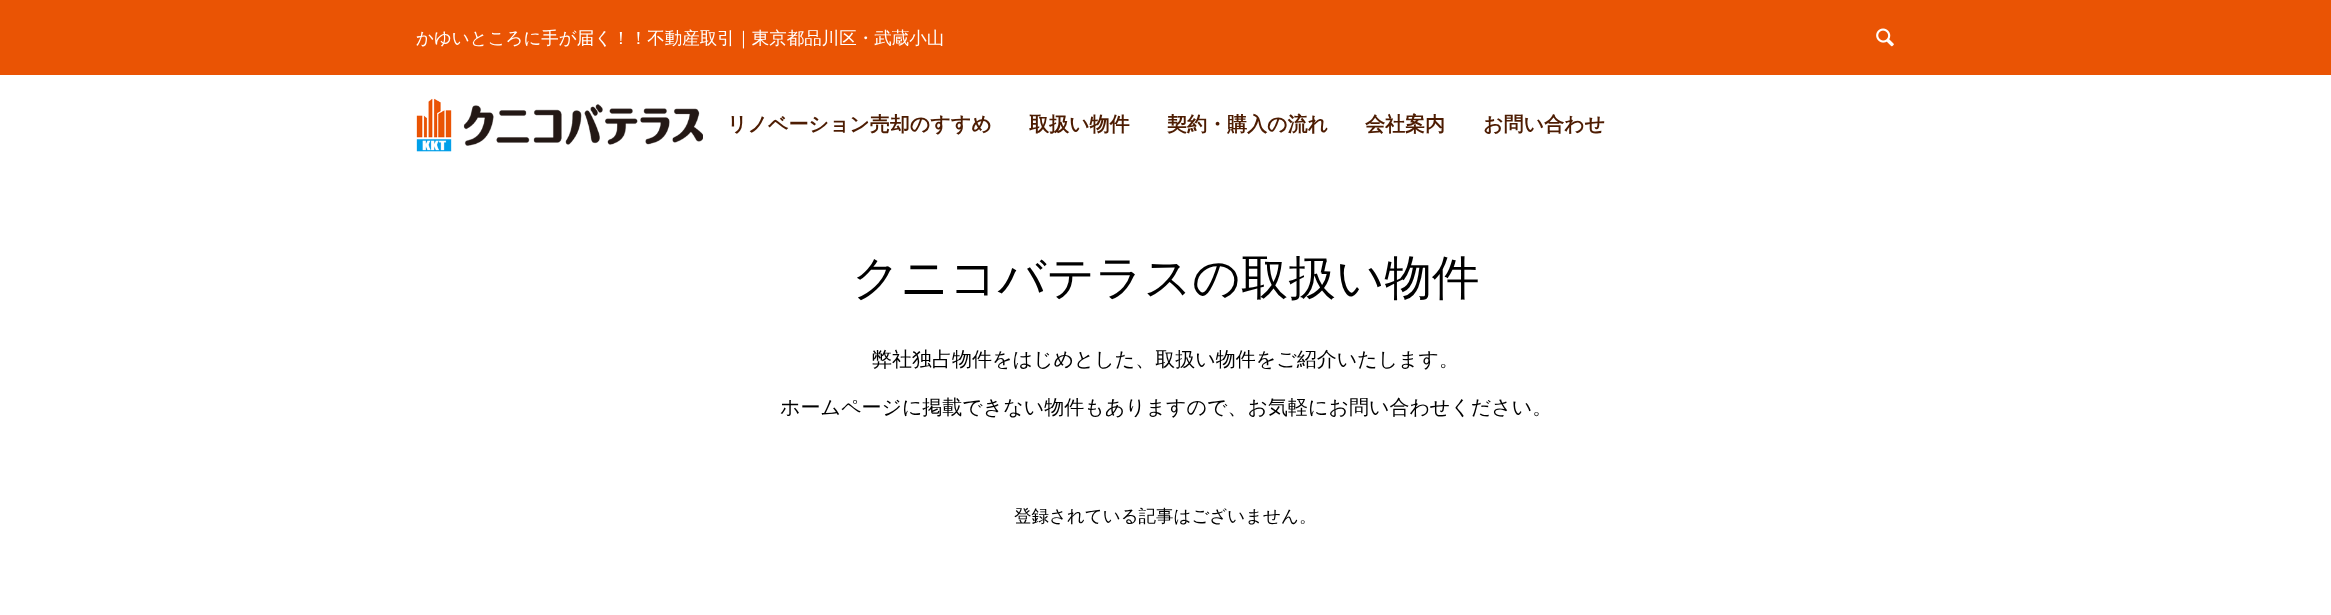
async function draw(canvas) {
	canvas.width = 2331;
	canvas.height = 615;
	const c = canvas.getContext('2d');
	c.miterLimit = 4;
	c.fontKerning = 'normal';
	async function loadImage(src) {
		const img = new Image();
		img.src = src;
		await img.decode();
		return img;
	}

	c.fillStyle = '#fff';
	c.fillRect(0, 0, 2331, 615);
	c.fillStyle = '#ea5404';
	c.fillRect(0, 0, 2331, 75);
	c.font = '500 17.5px WenQuanYi Zen Hei';
	c.fillStyle = '#fff';
	c.fillText('かゆいところに手が届く！！不動産取引｜東京都品川区・武蔵小山', 416, 44);
	c.drawImage(await loadImage('img1.png'), 1876, 28, 18, 19);
	c.drawImage(await loadImage('img2.png'), 416, 98, 287, 54);
	c.font = 'bold 20px WenQuanYi Zen Hei';
	c.fillStyle = '#4d1c02';
	for (const [text, x, y] of [
		['リノベーション売却のすすめ', 727, 131],
		['取扱い物件', 1029, 131],
		['契約・購入の流れ', 1167, 131],
		['会社案内', 1365, 131],
		['お問い合わせ', 1483, 131],
	]) {
		c.fillText(text, x, y);
	}
	c.font = '500 47.5px WenQuanYi Zen Hei';
	c.fillStyle = '#000';
	c.fillText('クニコバテラスの取扱い物件', 852, 294);
	c.font = '500 20px WenQuanYi Zen Hei';
	c.fillText('弊社独占物件をはじめとした、取扱い物件をご紹介いたします。', 872, 366);
	c.fillText('ホームページに掲載できない物件もありますので、お気軽にお問い合わせください。', 780, 414);
	c.font = '500 17.5px WenQuanYi Zen Hei';
	c.fillText('登録されている記事はございません。', 1014, 522);
}

draw(document.querySelector('canvas'));
